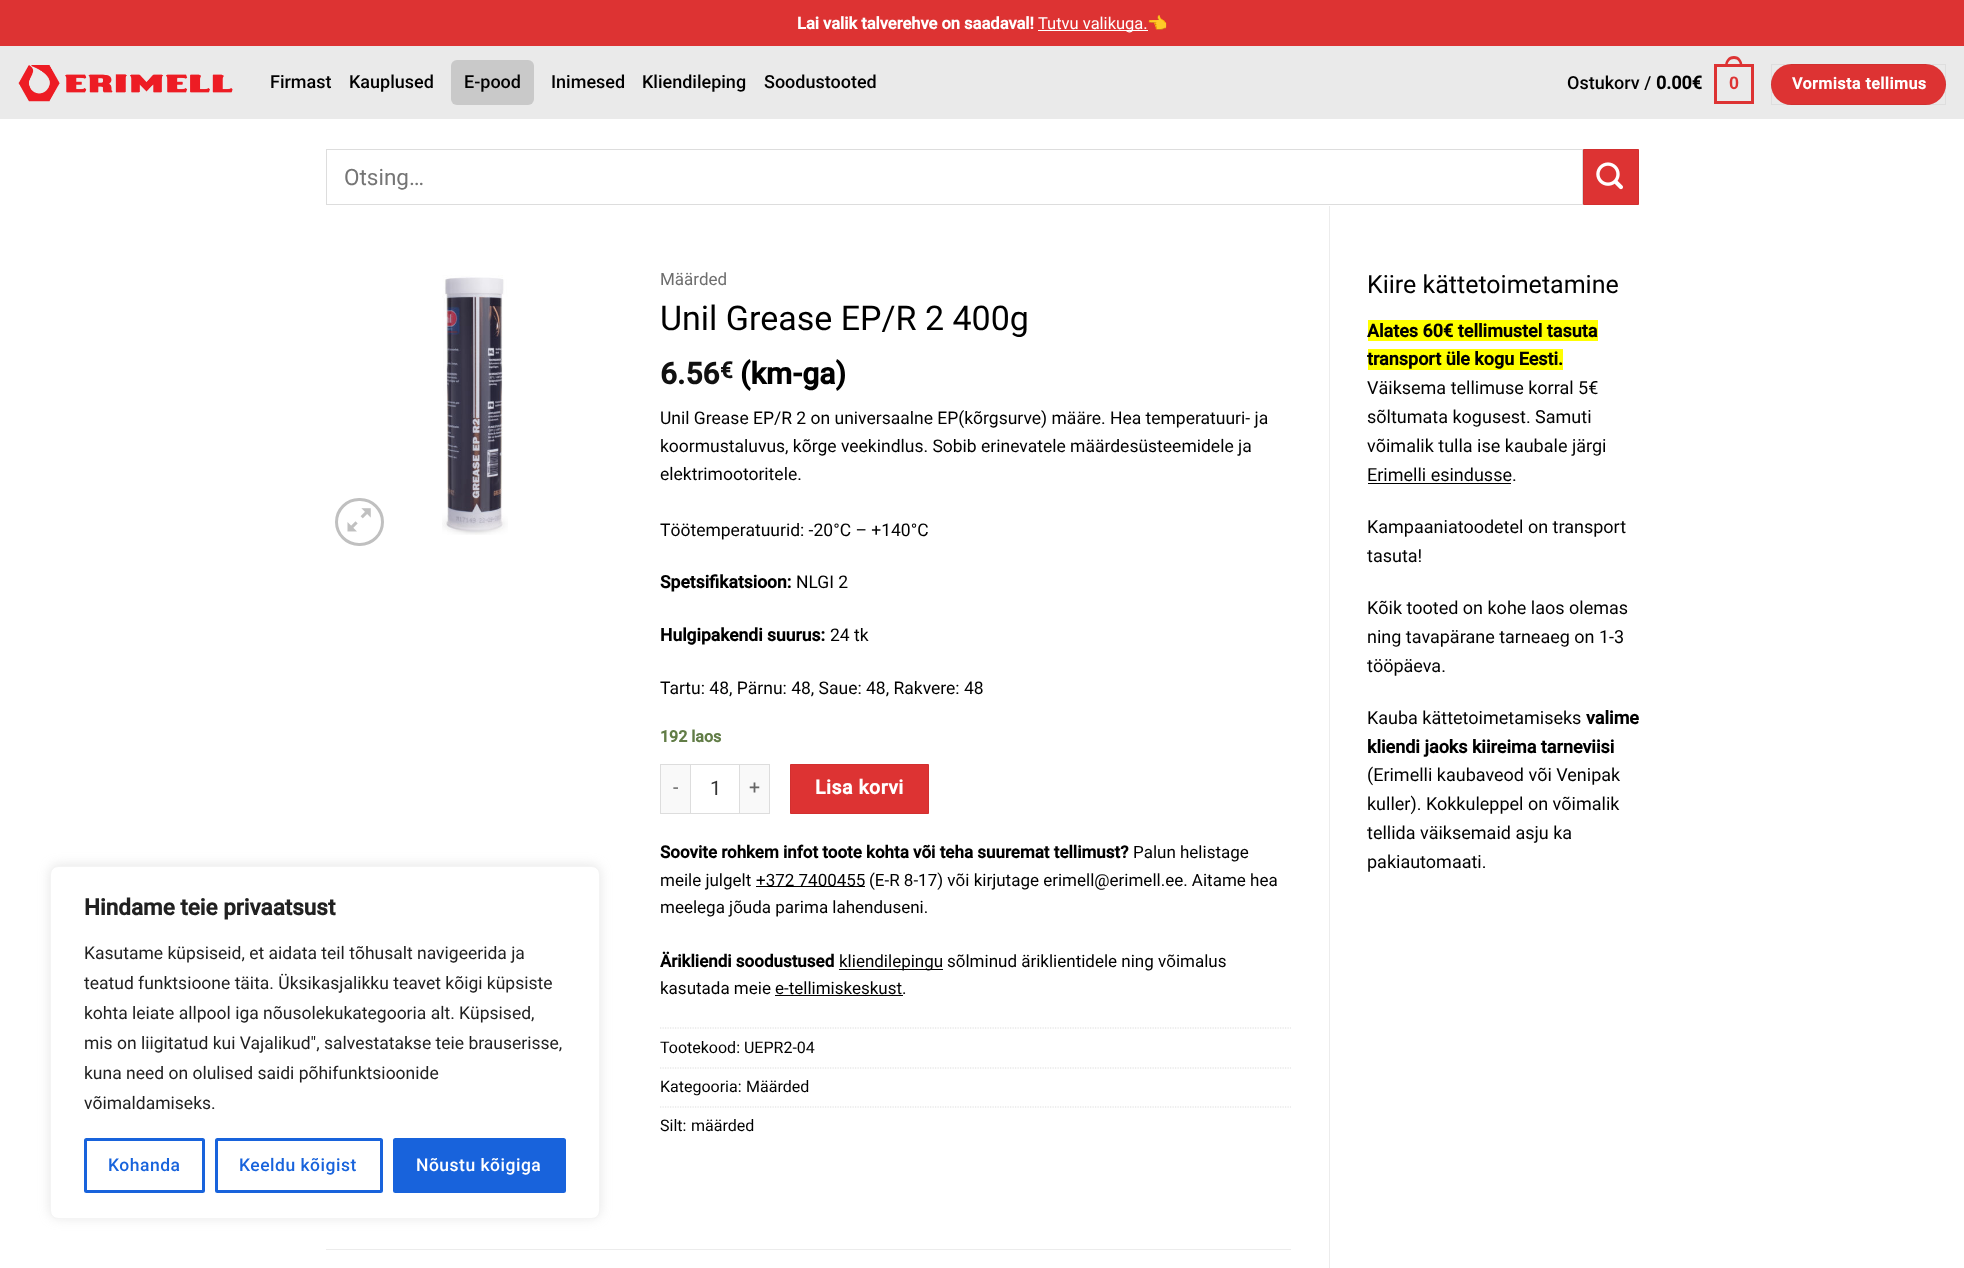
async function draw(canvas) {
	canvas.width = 1964;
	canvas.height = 1268;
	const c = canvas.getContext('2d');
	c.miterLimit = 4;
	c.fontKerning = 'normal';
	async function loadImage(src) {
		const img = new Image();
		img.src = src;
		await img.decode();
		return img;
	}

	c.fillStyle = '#fff';
	c.fillRect(0, 0, 1964, 1268);
	c.fillStyle = '#d33';
	c.fillRect(0, 0, 1964, 46);
	c.font = 'bold 16.5px Roboto';
	c.fillStyle = '#fff';
	c.fillText('Lai valik talverehve on saadaval!', 797, 29);
	c.fillRect(1038, 30, 110, 1);
	c.font = '16.5px Roboto';
	c.fillText('Tutvu valikuga.', 1038, 29);
	c.font = '16.5px Noto Color Emoji';
	c.fillText('👈', 1147, 29);
	c.fillStyle = '#eaeaea';
	c.fillRect(0, 46, 1964, 73);
	c.drawImage(await loadImage('img1.png'), 18, 65, 215, 37);
	c.font = '500 18px Roboto';
	c.fillStyle = '#000';
	c.fillText('Firmast', 270, 88);
	c.fillText('Kauplused', 349, 88);
	c.fillStyle = '#c9c9c9';
	c.beginPath();
	c.roundRect(451, 60, 83, 45, 6);
	c.fill();
	c.fillStyle = '#000';
	for (const [text, x, y] of [
		['E-pood', 464, 88],
		['Inimesed', 551, 88],
		['Kliendileping', 642, 88],
		['Soodustooted', 764, 88],
		['Ostukorv /', 1567, 89],
	]) {
		c.fillText(text, x, y);
	}
	c.font = 'bold 18px Roboto';
	c.fillText('0.00€', 1656, 89);
	c.strokeStyle = '#d33';
	c.lineWidth = 3;
	c.strokeRect(1715.5, 65.5, 37, 37);
	c.fillStyle = '#d33';
	c.beginPath();
	c.moveTo(1734, 56);
	c.bezierCurveTo(1739.5, 56, 1742.5, 61, 1742.5, 66);
	c.lineTo(1725, 66);
	c.bezierCurveTo(1725, 61, 1728, 56, 1734, 56);
	c.closePath();
	c.moveTo(1734, 59);
	c.bezierCurveTo(1738, 59, 1740, 62.5, 1740, 66);
	c.lineTo(1727.5, 66);
	c.bezierCurveTo(1727.5, 62.5, 1729.5, 59, 1734, 59);
	c.closePath();
	c.fill('evenodd');
	c.font = 'bold 18px Liberation Sans';
	c.fillText('0', 1729, 89);
	c.beginPath();
	c.roundRect(1771, 64, 175, 41, 20.5);
	c.fill();
	c.strokeStyle = '#0000000d';
	c.lineWidth = 1;
	c.strokeRect(1771.5, 64.5, 174, 40);
	c.letterSpacing = '0.5px';
	c.font = 'bold 16px Roboto';
	c.fillStyle = '#fff';
	c.fillText('Vormista tellimus', 1792, 89);
	c.strokeStyle = '#ddd';
	c.strokeRect(326.5, 149.5, 1256, 55);
	c.letterSpacing = '0px';
	c.font = '22.5px Roboto';
	c.fillStyle = '#757575';
	c.fillText('Otsing…', 344, 185);
	c.fillStyle = '#d33';
	c.beginPath();
	c.rect(1583.5, 149.5, 55, 55);
	c.fill();
	c.strokeStyle = '#d23030';
	c.stroke();
	c.drawImage(await loadImage('img2.png'), 1596, 162, 27, 28);
	c.fillStyle = '#ececec';
	c.fillRect(1329, 206, 1, 1062);
	c.beginPath();
	c.roundRect(336.5, 499.5, 46, 45, 22.5);
	c.strokeStyle = '#c0c0c0';
	c.lineWidth = 3;
	c.stroke();
	c.drawImage(await loadImage('img3.png'), 347, 508, 24, 24);
	c.drawImage(await loadImage('img4.png'), 442, 275, 66, 260);
	c.font = '17px Roboto';
	c.fillStyle = '#6e6e6e';
	c.fillText('Määrded', 660, 285);
	c.font = '34px Roboto';
	c.fillStyle = '#000';
	c.fillText('Unil Grease EP/R 2 400g', 660, 330);
	c.font = 'bold 30px Roboto';
	c.fillStyle = '#111';
	c.fillText('6.56', 660, 384);
	c.font = 'bold 22.5px Roboto';
	c.fillText('€', 720, 378);
	c.font = 'bold 30px Roboto';
	c.fillStyle = '#000';
	c.fillText('(km-ga)', 740, 384);
	c.font = '17.5px Roboto';
	for (const [text, x, y] of [
		['Unil Grease EP/R 2 on universaalne EP(kõrgsurve) määre. Hea temperatuuri- ja', 660, 424],
		['koormustaluvus, kõrge veekindlus. Sobib erinevatele määrdesüsteemidele ja', 660, 452],
		['elektrimootoritele.', 660, 480],
		['Töötemperatuurid: -20°C – +140°C', 660, 536],
	]) {
		c.fillText(text, x, y);
	}
	c.font = 'bold 17.5px Roboto';
	c.fillText('Spetsifikatsioon:', 660, 588);
	c.font = '17.5px Roboto';
	c.fillText('NLGI 2', 796, 588);
	c.font = 'bold 17.5px Roboto';
	c.fillText('Hulgipakendi suurus:', 660, 641);
	c.font = '17.5px Roboto';
	c.fillText('24 tk', 830, 641);
	c.fillText('Tartu: 48, Pärnu: 48, Saue: 48, Rakvere: 48', 660, 694);
	c.font = 'bold 16px Roboto';
	c.fillStyle = '#627d47';
	c.fillText('192 laos', 660, 742);
	for (const [x, y, w, h, color] of [
		[661, 765, 29, 48, '#f9f9f9'],
		[660, 764, 30, 1, '#ddd'],
		[660, 813, 30, 1, '#ddd'],
		[660, 764, 1, 50, '#ddd'],
	]) {
		c.fillStyle = color;
		c.fillRect(x, y, w, h);
	}
	c.letterSpacing = '0.5px';
	c.font = '19.5px Roboto';
	c.fillStyle = '#666';
	c.fillText('-', 673, 794);
	c.strokeStyle = '#ddd';
	c.lineWidth = 1;
	c.strokeRect(690.5, 764.5, 49, 49);
	c.letterSpacing = '0px';
	c.font = '20px Roboto';
	c.fillStyle = '#333';
	c.fillText('1', 710, 795);
	for (const [x, y, w, h, color] of [
		[740, 765, 29, 48, '#f9f9f9'],
		[740, 764, 30, 1, '#ddd'],
		[769, 764, 1, 50, '#ddd'],
		[740, 813, 30, 1, '#ddd'],
	]) {
		c.fillStyle = color;
		c.fillRect(x, y, w, h);
	}
	c.letterSpacing = '0.5px';
	c.font = '19.5px Roboto';
	c.fillStyle = '#666';
	c.fillText('+', 749, 794);
	c.fillStyle = '#d33';
	c.beginPath();
	c.rect(790.5, 764.5, 138, 49);
	c.fill();
	c.strokeStyle = '#d23030';
	c.stroke();
	c.font = 'bold 19.5px Roboto';
	c.fillStyle = '#fff';
	c.fillText('Lisa korvi', 815, 794);
	c.letterSpacing = '0px';
	c.font = 'bold 17px Roboto';
	c.fillStyle = '#000';
	c.fillText('Soovite rohkem infot toote kohta või teha suuremat tellimust?', 660, 858);
	c.font = '17px Roboto';
	c.fillText('Palun helistage', 1133, 858);
	c.fillText('meile julgelt', 660, 886);
	c.fillRect(756, 886, 109, 1);
	for (const [text, x, y] of [
		['+372 7400455', 756, 886],
		['(E-R 8-17) või kirjutage erimell@erimell.ee. Aitame hea', 869, 886],
		['meelega jõuda parima lahenduseni.', 660, 913],
	]) {
		c.fillText(text, x, y);
	}
	c.font = 'bold 17px Roboto';
	c.fillText('Ärikliendi soodustused', 660, 967);
	c.fillStyle = '#020202';
	c.fillRect(839, 969, 104, 1);
	c.font = '17px Roboto';
	c.fillStyle = '#000';
	for (const [text, x, y] of [
		['kliendilepingu', 839, 967],
		['sõlminud äriklientidele ning võimalus', 947, 967],
		['kasutada meie', 660, 994],
		['e-tellimiskeskust', 775, 994],
	]) {
		c.fillText(text, x, y);
	}
	c.fillStyle = '#020202';
	c.fillRect(775, 995, 128, 1);
	c.fillStyle = '#000';
	c.fillText('.', 902, 994);
	c.beginPath();
	c.moveTo(660, 1028);
	c.lineTo(1291, 1028);
	c.strokeStyle = '#ddd';
	c.lineWidth = 1.2;
	c.setLineDash([1.25, 1.25]);
	c.stroke();
	c.font = '16px Roboto';
	c.fillText('Tootekood: UEPR2-04', 660, 1053);
	c.beginPath();
	c.moveTo(660, 1068);
	c.lineTo(1291, 1068);
	c.stroke();
	c.fillText('Kategooria:', 660, 1092);
	c.fillText('Määrded', 746, 1092);
	c.beginPath();
	c.moveTo(660, 1107);
	c.lineTo(1291, 1107);
	c.stroke();
	c.fillText('Silt:', 660, 1131);
	c.fillText('määrded', 691, 1131);
	c.fillStyle = '#ececec';
	c.fillRect(326, 1249, 965, 1);
	c.font = '25px Roboto';
	c.fillStyle = '#000';
	c.fillText('Kiire kättetoimetamine', 1367, 293);
	c.fillStyle = '#ff0';
	c.fillRect(1368, 320, 230, 21);
	c.font = 'bold 18px Roboto';
	c.fillStyle = '#000';
	c.fillText('Alates 60€ tellimustel tasuta', 1367, 337);
	c.fillStyle = '#ff0';
	c.fillRect(1368, 349, 195, 21);
	c.fillStyle = '#000';
	c.fillText('transport üle kogu Eesti.', 1367, 365);
	c.font = '18px Roboto';
	for (const [text, x, y] of [
		['Väiksema tellimuse korral 5€', 1367, 394],
		['sõltumata kogusest. Samuti', 1367, 423],
		['võimalik tulla ise kaubale järgi', 1367, 452],
		['Erimelli esindusse', 1367, 481],
	]) {
		c.fillText(text, x, y);
	}
	c.fillRect(1368, 483, 143, 1);
	for (const [text, x, y] of [
		['.', 1512, 481],
		['Kampaaniatoodetel on transport', 1367, 533],
		['tasuta!', 1367, 562],
		['Kõik tooted on kohe laos olemas', 1367, 614],
		['ning tavapärane tarneaeg on 1-3', 1367, 643],
		['tööpäeva.', 1367, 672],
		['Kauba kättetoimetamiseks', 1367, 724],
	]) {
		c.fillText(text, x, y);
	}
	c.font = 'bold 18px Roboto';
	c.fillText('valime', 1586, 724);
	c.fillText('kliendi jaoks kiireima tarneviisi', 1367, 753);
	c.font = '18px Roboto';
	for (const [text, x, y] of [
		['(Erimelli kaubaveod või Venipak', 1367, 781],
		['kuller). Kokkuleppel on võimalik', 1367, 810],
		['tellida väiksemaid asju ka', 1367, 839],
		['pakiautomaati.', 1367, 868],
	]) {
		c.fillText(text, x, y);
	}
	c.fillStyle = '#acabab4d';
	c.filter = 'blur(6px)';
	c.beginPath();
	c.roundRect(50, 865, 550, 353, 8);
	c.fill();
	c.filter = 'none';
	c.fillStyle = '#fff';
	c.beginPath();
	c.roundRect(50.5, 866.5, 549, 352, 7.5);
	c.fill();
	c.strokeStyle = '#f4f4f4';
	c.lineWidth = 1;
	c.setLineDash([]);
	c.stroke();
	c.font = 'bold 22.5px Roboto';
	c.fillStyle = '#212121';
	c.fillText('Hindame teie privaatsust', 84, 915);
	c.font = '17.5px Roboto';
	for (const [text, x, y] of [
		['Kasutame küpsiseid, et aidata teil tõhusalt navigeerida ja', 84, 959],
		['teatud funktsioone täita. Üksikasjalikku teavet kõigi küpsiste', 84, 989],
		['kohta leiate allpool iga nõusolekukategooria alt. Küpsised,', 84, 1019],
		['mis on liigitatud kui Vajalikud", salvestatakse teie brauserisse,', 84, 1049],
		['kuna need on olulised saidi põhifunktsioonide', 84, 1079],
		['võimaldamiseks.', 84, 1109],
	]) {
		c.fillText(text, x, y);
	}
	c.beginPath();
	c.roundRect(85.5, 1139.5, 118, 52, 1);
	c.strokeStyle = '#1863dc';
	c.lineWidth = 3;
	c.stroke();
	c.letterSpacing = '0.5px';
	c.font = '500 17.5px Roboto';
	c.fillStyle = '#1863dc';
	c.fillText('Kohanda', 108, 1171);
	c.beginPath();
	c.roundRect(216.5, 1139.5, 165, 52, 1);
	c.stroke();
	c.fillText('Keeldu kõigist', 239, 1171);
	c.beginPath();
	c.roundRect(394.5, 1139.5, 170, 52, 1);
	c.fill();
	c.stroke();
	c.fillStyle = '#fff';
	c.fillText('Nõustu kõigiga', 416, 1171);
}

draw(document.querySelector('canvas'));
